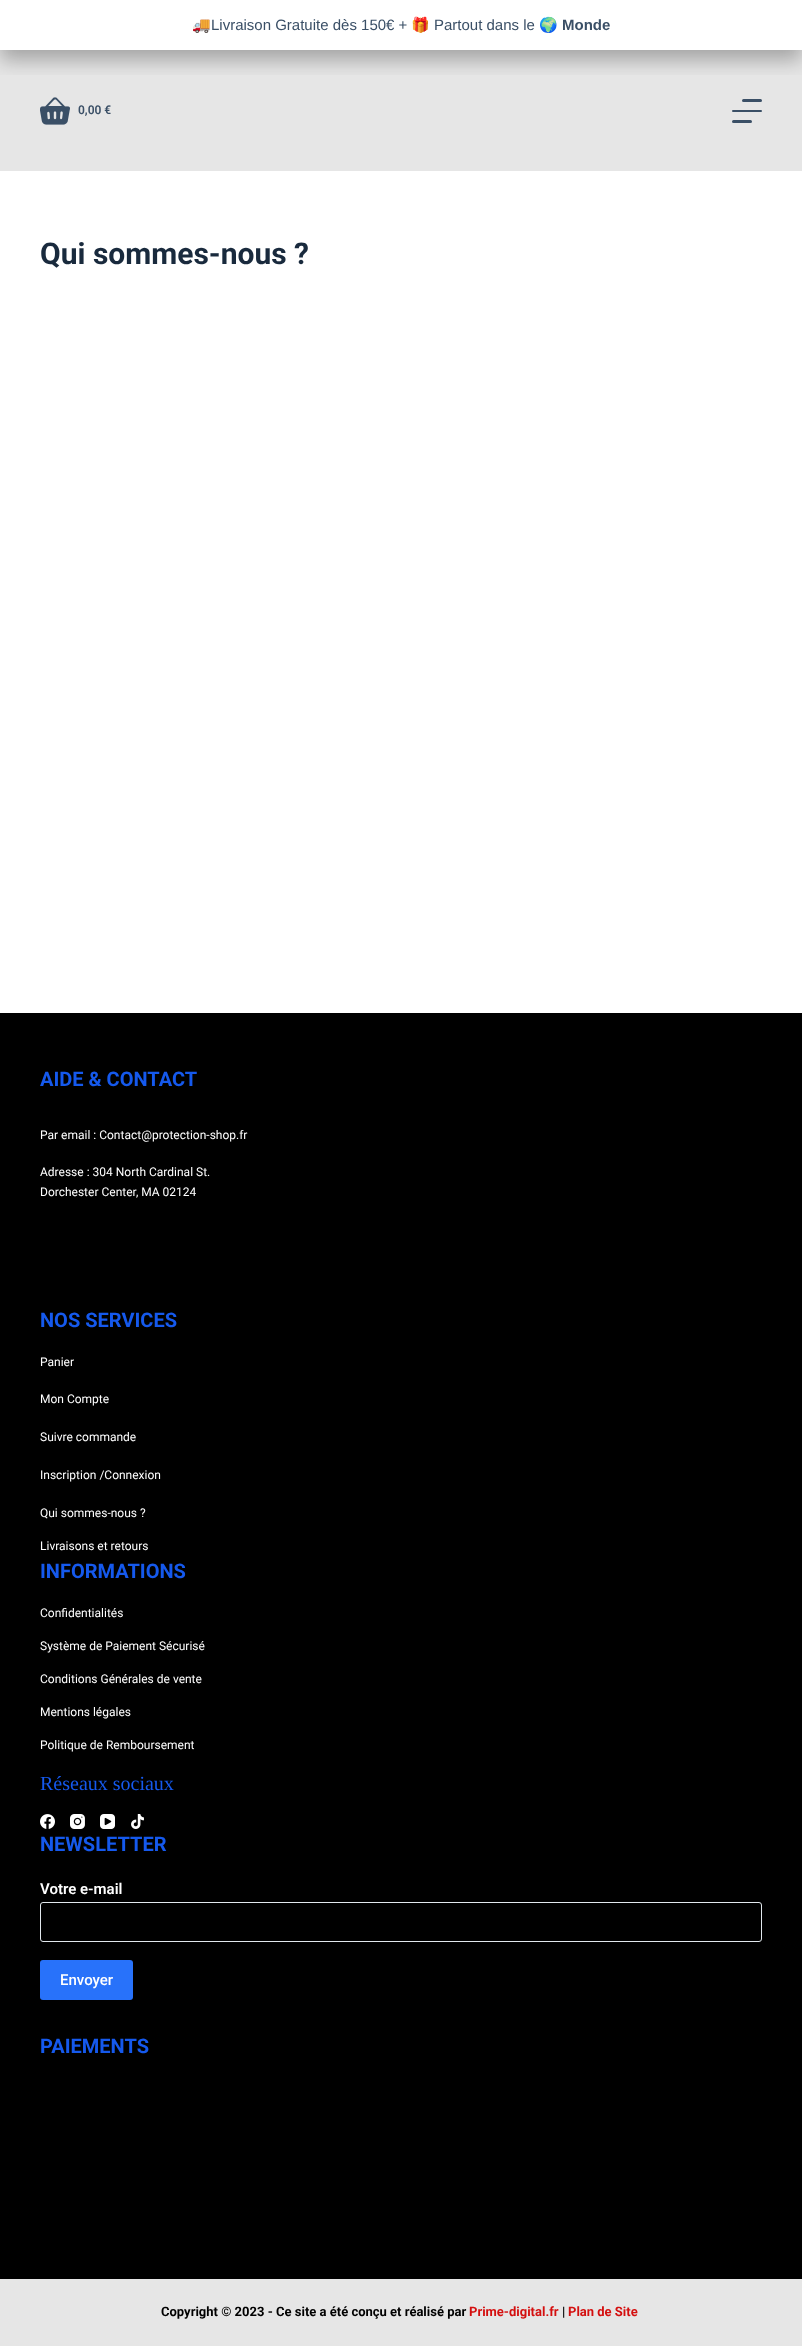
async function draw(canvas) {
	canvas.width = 802;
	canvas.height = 2346;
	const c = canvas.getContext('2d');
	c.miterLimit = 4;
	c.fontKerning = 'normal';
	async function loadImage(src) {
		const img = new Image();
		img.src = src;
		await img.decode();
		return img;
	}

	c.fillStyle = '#fff';
	c.fillRect(0, 0, 802, 2346);
	c.fillStyle = '#e6e6e6';
	c.fillRect(0, 50, 802, 121);
	c.save();
	c.beginPath();
	c.rect(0, 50, 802, 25);
	c.clip();
	c.fillStyle = '#0000004a';
	c.filter = 'blur(10px)';
	c.beginPath();
	c.rect(0, 10, 802, 50);
	c.fill();
	c.filter = 'none';
	c.restore();
	c.font = '15px Noto Color Emoji';
	c.fillStyle = '#3a4f66';
	c.fillText('🚚', 192, 30);
	c.font = '15px Liberation Sans';
	c.fillText('Livraison Gratuite dès 150€ +', 211, 30);
	c.font = '15px Noto Color Emoji';
	c.fillText('🎁', 411, 30);
	c.font = '15px Liberation Sans';
	c.fillText('Partout dans le', 434, 30);
	c.font = '15px Noto Color Emoji';
	c.fillText('🌍', 539, 30);
	c.font = 'bold 15px Liberation Sans';
	c.fillText('Monde', 562, 30);
	c.drawImage(await loadImage('img1.png'), 40, 97, 30, 28);
	c.font = '600 12px Roboto';
	c.fillText('0,00 €', 78, 114);
	c.beginPath();
	c.roundRect(742, 99, 20, 3, 1.5);
	c.fill();
	c.beginPath();
	c.roundRect(732, 110, 30, 2, 1);
	c.fill();
	c.beginPath();
	c.roundRect(732, 120, 20, 3, 1.5);
	c.fill();
	c.font = 'bold 30px Roboto';
	c.fillStyle = '#192a3d';
	c.fillText('Qui sommes-nous ?', 40, 264);
	c.fillStyle = '#000';
	c.fillRect(0, 1013, 802, 1266);
	c.font = 'bold 20px Roboto';
	c.fillStyle = '#1559ed';
	c.fillText('AIDE & CONTACT', 40, 1086);
	c.font = '12px Roboto';
	c.fillStyle = '#fff';
	for (const [text, x, y] of [
		['Par email : Contact@protection-shop.fr', 40, 1139],
		['Adresse : 304 North Cardinal St.', 40, 1176],
		['Dorchester Center, MA 02124', 40, 1196],
	]) {
		c.fillText(text, x, y);
	}
	c.font = 'bold 20px Roboto';
	c.fillStyle = '#1559ed';
	c.fillText('NOS SERVICES', 40, 1327);
	c.font = '12px Roboto';
	c.fillStyle = '#fff';
	for (const [text, x, y] of [
		['Panier', 40, 1366],
		['Mon Compte', 40, 1403],
		['Suivre commande', 40, 1441],
		['Inscription /Connexion', 40, 1479],
		['Qui sommes-nous ?', 40, 1517],
		['Livraisons et retours', 40, 1550],
	]) {
		c.fillText(text, x, y);
	}
	c.font = 'bold 20px Roboto';
	c.fillStyle = '#1559ed';
	c.fillText('INFORMATIONS', 40, 1578);
	c.font = '12px Roboto';
	c.fillStyle = '#fff';
	for (const [text, x, y] of [
		['Confidentialités', 40, 1617],
		['Système de Paiement Sécurisé', 40, 1650],
		['Conditions Générales de vente', 40, 1683],
		['Mentions légales', 40, 1716],
		['Politique de Remboursement', 40, 1749],
	]) {
		c.fillText(text, x, y);
	}
	c.font = '20px Liberation Serif';
	c.fillStyle = '#1559ed';
	c.fillText('Réseaux sociaux', 40, 1790);
	c.drawImage(await loadImage('img2.png'), 40, 1814, 15, 15);
	c.drawImage(await loadImage('img3.png'), 70, 1814, 15, 15);
	c.drawImage(await loadImage('img4.png'), 100, 1814, 15, 15);
	c.drawImage(await loadImage('img5.png'), 131, 1814, 13, 15);
	c.font = 'bold 20px Roboto';
	c.fillText('NEWSLETTER', 40, 1851);
	c.font = '600 15px Roboto';
	c.fillStyle = '#fff';
	c.fillText('Votre e-mail', 40, 1894);
	c.beginPath();
	c.roundRect(40.5, 1902.5, 721, 39, 2.5);
	c.strokeStyle = '#e1e8ed';
	c.stroke();
	c.fillStyle = '#2872fa';
	c.beginPath();
	c.roundRect(40, 1960, 93, 40, 3);
	c.fill();
	c.font = '500 15px Roboto';
	c.fillStyle = '#fff';
	c.fillText('Envoyer', 60, 1985);
	c.font = 'bold 20px Roboto';
	c.fillStyle = '#1559ed';
	c.fillText('PAIEMENTS', 40, 2053);
	c.fillStyle = '#e6e6e6';
	c.fillRect(0, 2279, 802, 67);
	c.font = 'bold 13px Roboto';
	c.fillStyle = '#000';
	c.fillText('Copyright © 2023 - Ce site a été conçu et réalisé par', 161, 2316);
	c.fillStyle = '#d40f0f';
	c.fillText('Prime-digital.fr', 469, 2316);
	c.fillStyle = '#000';
	c.fillText('|', 562, 2316);
	c.fillStyle = '#d40f0f';
	c.fillText('Plan de Site', 568, 2316);
}

draw(document.querySelector('canvas'));
